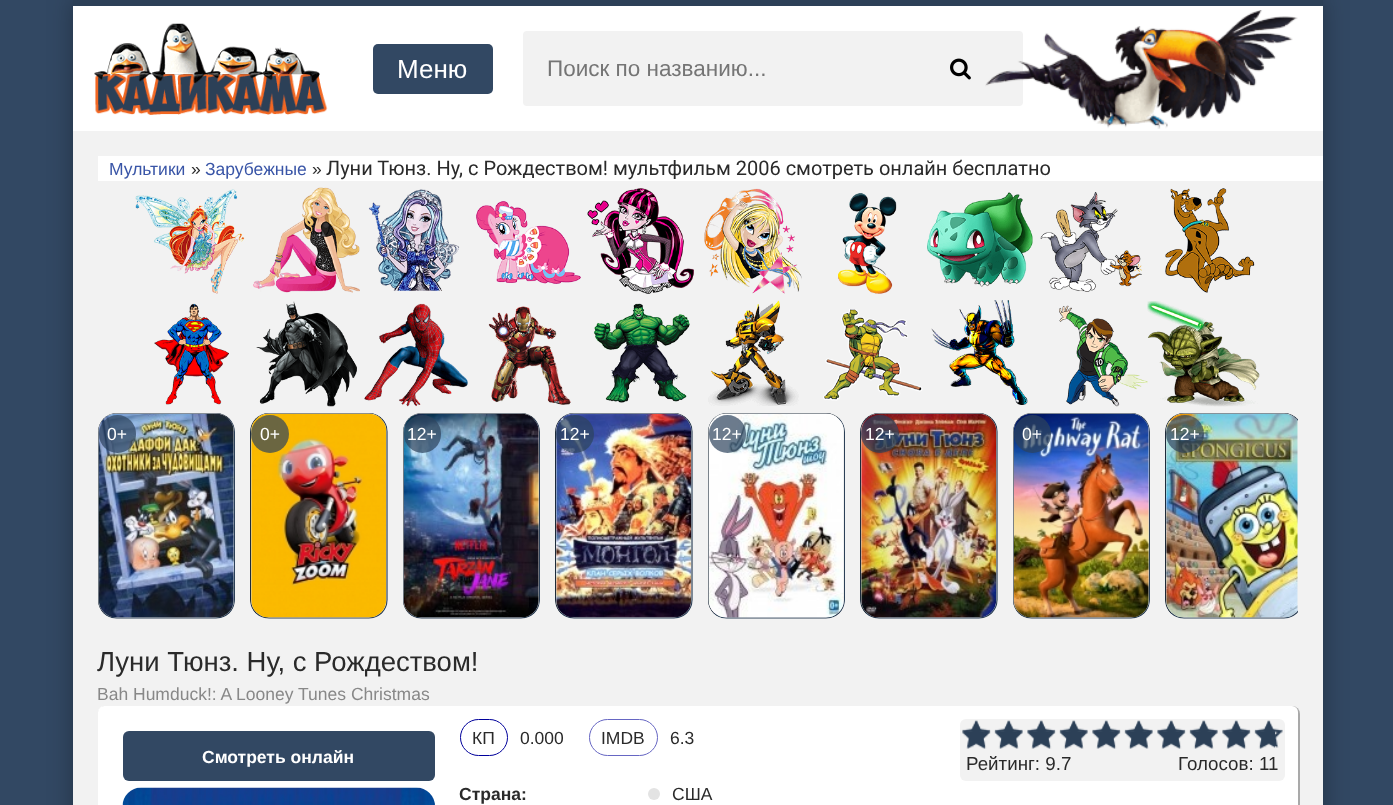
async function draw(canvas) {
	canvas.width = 1393;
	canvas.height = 805;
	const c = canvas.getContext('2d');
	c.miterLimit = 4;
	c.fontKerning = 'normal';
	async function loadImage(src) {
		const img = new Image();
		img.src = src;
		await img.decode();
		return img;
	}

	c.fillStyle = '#324863';
	c.fillRect(0, 0, 1393, 805);
	c.fillStyle = '#0000004d';
	c.filter = 'blur(12.5px)';
	c.beginPath();
	c.rect(73, 0, 1250, 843);
	c.fill();
	c.filter = 'none';
	for (const [x, y, w, h, color] of [
		[73, 131, 1250, 674, '#f2f2f2'],
		[73, 0, 1250, 6, '#2c4057'],
		[73, 6, 1250, 125, '#fff'],
	]) {
		c.fillStyle = color;
		c.fillRect(x, y, w, h);
	}
	c.drawImage(await loadImage('img1.png'), 94, 23, 234, 92);
	c.fillStyle = '#324863';
	c.beginPath();
	c.roundRect(373, 44, 120, 50, 5);
	c.fill();
	c.font = '26px Liberation Sans';
	c.fillStyle = '#fff';
	c.fillText('Меню', 397, 78);
	c.fillStyle = '#f2f2f2';
	c.beginPath();
	c.roundRect(523, 31, 500, 75, 4);
	c.fill();
	c.font = '22.5px Liberation Sans';
	c.fillStyle = '#757575';
	c.fillText('Поиск по названию...', 547, 76);
	c.drawImage(await loadImage('img2.png'), 950, 58, 21, 22);
	c.drawImage(await loadImage('img3.png'), 985, 10, 313, 119);
	c.fillStyle = '#fff';
	c.fillRect(98, 156, 1225, 25);
	c.font = '17.5px Liberation Sans';
	c.fillStyle = '#3955a7';
	c.fillText('Мультики', 109, 175);
	c.fillStyle = '#2a2a2a';
	c.fillText('»', 191, 175);
	c.fillStyle = '#3955a7';
	c.fillText('Зарубежные', 205, 175);
	c.fillStyle = '#2a2a2a';
	c.fillText('»', 312, 175);
	c.font = '20px Roboto';
	c.fillText('Луни Тюнз. Ну, с Рождеством! мультфильм 2006 смотреть онлайн бесплатно', 326, 175);
	c.drawImage(await loadImage('img4.png'), 135, 189, 110, 105);
	c.drawImage(await loadImage('img5.png'), 253, 187, 107, 106);
	c.drawImage(await loadImage('img6.png'), 368, 189, 92, 102);
	c.drawImage(await loadImage('img7.png'), 476, 201, 105, 83);
	c.drawImage(await loadImage('img8.png'), 587, 188, 107, 106);
	c.drawImage(await loadImage('img9.png'), 704, 188, 98, 106);
	c.drawImage(await loadImage('img10.png'), 838, 193, 59, 101);
	c.drawImage(await loadImage('img11.png'), 927, 192, 106, 95);
	c.drawImage(await loadImage('img12.png'), 1040, 192, 102, 100);
	c.drawImage(await loadImage('img13.png'), 1165, 188, 90, 105);
	c.drawImage(await loadImage('img14.png'), 154, 303, 75, 102);
	c.drawImage(await loadImage('img15.png'), 256, 301, 101, 106);
	c.drawImage(await loadImage('img16.png'), 364, 303, 104, 104);
	c.drawImage(await loadImage('img17.png'), 488, 306, 83, 99);
	c.drawImage(await loadImage('img18.png'), 593, 303, 97, 100);
	c.drawImage(await loadImage('img19.png'), 708, 300, 91, 106);
	c.drawImage(await loadImage('img20.png'), 823, 309, 100, 92);
	c.drawImage(await loadImage('img21.png'), 931, 300, 97, 105);
	c.drawImage(await loadImage('img22.png'), 1059, 305, 89, 102);
	c.drawImage(await loadImage('img23.png'), 1147, 301, 113, 106);
	c.save();
	c.beginPath();
	c.roundRect(98, 413, 137, 206, 19);
	c.clip();
	c.beginPath();
	c.moveTo(229, 418.5);
	c.bezierCurveTo(232.5, 422, 234.5, 426.5, 234.5, 431);
	c.lineTo(234.5, 600);
	c.bezierCurveTo(234.5, 605, 232.5, 609.5, 229, 613);
	c.bezierCurveTo(225.5, 616, 221, 618, 216, 618);
	c.lineTo(116, 618);
	c.bezierCurveTo(111.5, 618, 107, 616, 103.5, 613);
	c.strokeStyle = '#2c4057';
	c.lineWidth = 1.2;
	c.stroke();
	c.beginPath();
	c.moveTo(103.5, 613);
	c.bezierCurveTo(100, 609.5, 98, 605, 98, 600);
	c.lineTo(98, 431);
	c.bezierCurveTo(98, 426.5, 100, 422, 103.5, 418.5);
	c.bezierCurveTo(107, 415, 111.5, 413, 116, 413);
	c.lineTo(216, 413);
	c.bezierCurveTo(221, 413, 225.5, 415, 229, 418.5);
	c.strokeStyle = '#1d2b3a';
	c.stroke();
	c.restore();
	c.drawImage(await loadImage('img24.png'), 98, 413, 136, 205);
	c.fillStyle = '#2e435cb3';
	c.beginPath();
	c.roundRect(99, 415, 37, 38, 18.5);
	c.fill();
	c.font = '17.5px Liberation Sans';
	c.fillStyle = '#fff';
	c.fillText('0+', 107, 440);
	c.save();
	c.beginPath();
	c.roundRect(250, 413, 138, 206, 19);
	c.clip();
	c.beginPath();
	c.moveTo(381.5, 418.5);
	c.bezierCurveTo(385, 422, 387, 426.5, 387, 431);
	c.lineTo(387, 600);
	c.bezierCurveTo(387, 605, 385, 609.5, 381.5, 613);
	c.bezierCurveTo(378, 616, 373.5, 618, 369, 618);
	c.lineTo(269, 618);
	c.bezierCurveTo(264, 618, 259.5, 616, 256, 613);
	c.strokeStyle = '#2c4057';
	c.lineWidth = 1.2;
	c.stroke();
	c.beginPath();
	c.moveTo(256, 613);
	c.bezierCurveTo(252.5, 609.5, 250.5, 605, 250.5, 600);
	c.lineTo(250.5, 431);
	c.bezierCurveTo(250.5, 426.5, 252.5, 422, 256, 418.5);
	c.bezierCurveTo(259.5, 415, 264, 413, 269, 413);
	c.lineTo(369, 413);
	c.bezierCurveTo(373.5, 413, 378, 415, 381.5, 418.5);
	c.strokeStyle = '#1d2b3a';
	c.stroke();
	c.restore();
	c.drawImage(await loadImage('img25.png'), 251, 413, 136, 205);
	c.fillStyle = '#2e435cb3';
	c.beginPath();
	c.arc(270, 434, 19, 0, 2 * Math.PI);
	c.fill();
	c.fillStyle = '#fff';
	c.fillText('0+', 260, 440);
	c.save();
	c.beginPath();
	c.roundRect(403, 413, 137, 206, 19);
	c.clip();
	c.beginPath();
	c.moveTo(534, 418.5);
	c.bezierCurveTo(537.5, 422, 539.5, 426.5, 539.5, 431);
	c.lineTo(539.5, 600);
	c.bezierCurveTo(539.5, 605, 537.5, 609.5, 534, 613);
	c.bezierCurveTo(530.5, 616, 526, 618, 521, 618);
	c.lineTo(421, 618);
	c.bezierCurveTo(416.5, 618, 412, 616, 408.5, 613);
	c.strokeStyle = '#2c4057';
	c.lineWidth = 1.2;
	c.stroke();
	c.beginPath();
	c.moveTo(408.5, 613);
	c.bezierCurveTo(405, 609.5, 403, 605, 403, 600);
	c.lineTo(403, 431);
	c.bezierCurveTo(403, 426.5, 405, 422, 408.5, 418.5);
	c.bezierCurveTo(412, 415, 416.5, 413, 421, 413);
	c.lineTo(521, 413);
	c.bezierCurveTo(526, 413, 530.5, 415, 534, 418.5);
	c.strokeStyle = '#1d2b3a';
	c.stroke();
	c.restore();
	c.drawImage(await loadImage('img26.png'), 403, 413, 136, 205);
	c.fillStyle = '#2e435cb3';
	c.beginPath();
	c.roundRect(404, 415, 37, 38, 18.5);
	c.fill();
	c.fillStyle = '#fff';
	c.fillText('12+', 407, 440);
	c.save();
	c.beginPath();
	c.roundRect(555, 413, 138, 206, 19);
	c.clip();
	c.beginPath();
	c.moveTo(686.5, 418.5);
	c.bezierCurveTo(690, 422, 692, 426.5, 692, 431);
	c.lineTo(692, 600);
	c.bezierCurveTo(692, 605, 690, 609.5, 686.5, 613);
	c.bezierCurveTo(683, 616, 678.5, 618, 674, 618);
	c.lineTo(574, 618);
	c.bezierCurveTo(569, 618, 564.5, 616, 561, 613);
	c.strokeStyle = '#2c4057';
	c.lineWidth = 1.2;
	c.stroke();
	c.beginPath();
	c.moveTo(561, 613);
	c.bezierCurveTo(557.5, 609.5, 555.5, 605, 555.5, 600);
	c.lineTo(555.5, 431);
	c.bezierCurveTo(555.5, 426.5, 557.5, 422, 561, 418.5);
	c.bezierCurveTo(564.5, 415, 569, 413, 574, 413);
	c.lineTo(674, 413);
	c.bezierCurveTo(678.5, 413, 683, 415, 686.5, 418.5);
	c.strokeStyle = '#1d2b3a';
	c.stroke();
	c.restore();
	c.drawImage(await loadImage('img27.png'), 556, 413, 136, 205);
	c.fillStyle = '#2e435cb3';
	c.beginPath();
	c.arc(575, 434, 19, 0, 2 * Math.PI);
	c.fill();
	c.fillStyle = '#fff';
	c.fillText('12+', 560, 440);
	c.save();
	c.beginPath();
	c.roundRect(708, 413, 137, 206, 19);
	c.clip();
	c.beginPath();
	c.moveTo(839, 418.5);
	c.bezierCurveTo(842.5, 422, 844.5, 426.5, 844.5, 431);
	c.lineTo(844.5, 600);
	c.bezierCurveTo(844.5, 605, 842.5, 609.5, 839, 613);
	c.bezierCurveTo(835.5, 616, 831, 618, 826, 618);
	c.lineTo(726, 618);
	c.bezierCurveTo(721.5, 618, 717, 616, 713.5, 613);
	c.strokeStyle = '#2c4057';
	c.lineWidth = 1.2;
	c.stroke();
	c.beginPath();
	c.moveTo(713.5, 613);
	c.bezierCurveTo(710, 609.5, 708, 605, 708, 600);
	c.lineTo(708, 431);
	c.bezierCurveTo(708, 426.5, 710, 422, 713.5, 418.5);
	c.bezierCurveTo(717, 415, 721.5, 413, 726, 413);
	c.lineTo(826, 413);
	c.bezierCurveTo(831, 413, 835.5, 415, 839, 418.5);
	c.strokeStyle = '#1d2b3a';
	c.stroke();
	c.restore();
	c.drawImage(await loadImage('img28.png'), 708, 413, 136, 205);
	c.fillStyle = '#2e435cb3';
	c.beginPath();
	c.roundRect(709, 415, 37, 38, 18.5);
	c.fill();
	c.fillStyle = '#fff';
	c.fillText('12+', 712, 440);
	c.save();
	c.beginPath();
	c.roundRect(860, 413, 138, 206, 19);
	c.clip();
	c.beginPath();
	c.moveTo(991.5, 418.5);
	c.bezierCurveTo(995, 422, 997, 426.5, 997, 431);
	c.lineTo(997, 600);
	c.bezierCurveTo(997, 605, 995, 609.5, 991.5, 613);
	c.bezierCurveTo(988, 616, 983.5, 618, 979, 618);
	c.lineTo(879, 618);
	c.bezierCurveTo(874, 618, 869.5, 616, 866, 613);
	c.strokeStyle = '#2c4057';
	c.lineWidth = 1.2;
	c.stroke();
	c.beginPath();
	c.moveTo(866, 613);
	c.bezierCurveTo(862.5, 609.5, 860.5, 605, 860.5, 600);
	c.lineTo(860.5, 431);
	c.bezierCurveTo(860.5, 426.5, 862.5, 422, 866, 418.5);
	c.bezierCurveTo(869.5, 415, 874, 413, 879, 413);
	c.lineTo(979, 413);
	c.bezierCurveTo(983.5, 413, 988, 415, 991.5, 418.5);
	c.strokeStyle = '#1d2b3a';
	c.stroke();
	c.restore();
	c.drawImage(await loadImage('img29.png'), 861, 413, 136, 205);
	c.fillStyle = '#2e435cb3';
	c.beginPath();
	c.arc(880, 434, 19, 0, 2 * Math.PI);
	c.fill();
	c.fillStyle = '#fff';
	c.fillText('12+', 865, 440);
	c.save();
	c.beginPath();
	c.roundRect(1013, 413, 137, 206, 19);
	c.clip();
	c.beginPath();
	c.moveTo(1144, 418.5);
	c.bezierCurveTo(1147.5, 422, 1149.5, 426.5, 1149.5, 431);
	c.lineTo(1149.5, 600);
	c.bezierCurveTo(1149.5, 605, 1147.5, 609.5, 1144, 613);
	c.bezierCurveTo(1140.5, 616, 1136, 618, 1131, 618);
	c.lineTo(1031, 618);
	c.bezierCurveTo(1026.5, 618, 1022, 616, 1018.5, 613);
	c.strokeStyle = '#2c4057';
	c.lineWidth = 1.2;
	c.stroke();
	c.beginPath();
	c.moveTo(1018.5, 613);
	c.bezierCurveTo(1015, 609.5, 1013, 605, 1013, 600);
	c.lineTo(1013, 431);
	c.bezierCurveTo(1013, 426.5, 1015, 422, 1018.5, 418.5);
	c.bezierCurveTo(1022, 415, 1026.5, 413, 1031, 413);
	c.lineTo(1131, 413);
	c.bezierCurveTo(1136, 413, 1140.5, 415, 1144, 418.5);
	c.strokeStyle = '#1d2b3a';
	c.stroke();
	c.restore();
	c.drawImage(await loadImage('img30.png'), 1013, 413, 136, 205);
	c.fillStyle = '#2e435cb3';
	c.beginPath();
	c.roundRect(1014, 415, 37, 38, 18.5);
	c.fill();
	c.fillStyle = '#fff';
	c.fillText('0+', 1022, 440);
	c.save();
	c.beginPath();
	c.rect(98, 413, 1200, 212);
	c.clip();
	c.beginPath();
	c.roundRect(1165, 413, 138, 206, 19);
	c.clip();
	c.beginPath();
	c.moveTo(1296.5, 418.5);
	c.bezierCurveTo(1300, 422, 1302, 426.5, 1302, 431);
	c.lineTo(1302, 600);
	c.bezierCurveTo(1302, 605, 1300, 609.5, 1296.5, 613);
	c.bezierCurveTo(1293, 616, 1288.5, 618, 1284, 618);
	c.lineTo(1184, 618);
	c.bezierCurveTo(1179, 618, 1174.5, 616, 1171, 613);
	c.strokeStyle = '#2c4057';
	c.lineWidth = 1.2;
	c.stroke();
	c.restore();
	c.save();
	c.beginPath();
	c.roundRect(1165, 413, 138, 206, 19);
	c.clip();
	c.beginPath();
	c.moveTo(1171, 613);
	c.bezierCurveTo(1167.5, 609.5, 1165.5, 605, 1165.5, 600);
	c.lineTo(1165.5, 431);
	c.bezierCurveTo(1165.5, 426.5, 1167.5, 422, 1171, 418.5);
	c.bezierCurveTo(1174.5, 415, 1179, 413, 1184, 413);
	c.lineTo(1284, 413);
	c.bezierCurveTo(1288.5, 413, 1293, 415, 1296.5, 418.5);
	c.strokeStyle = '#1d2b3a';
	c.lineWidth = 1.2;
	c.stroke();
	c.restore();
	c.drawImage(await loadImage('img31.png'), 1166, 413, 132, 205);
	c.fillStyle = '#2e435cb3';
	c.beginPath();
	c.arc(1185, 434, 19, 0, 2 * Math.PI);
	c.fill();
	c.fillStyle = '#fff';
	c.fillText('12+', 1170, 440);
	c.font = '27.5px Liberation Sans';
	c.fillStyle = '#2a2a2a';
	c.fillText('Луни Тюнз. Ну, с Рождеством!', 97, 671);
	c.fillStyle = '#0000004d';
	c.filter = 'blur(0.5px)';
	c.beginPath();
	c.roundRect(98, 706, 1202, 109, 8);
	c.fill();
	c.filter = 'none';
	c.font = '17.5px Liberation Sans';
	c.fillStyle = '#888';
	c.fillText('Bah Humduck!: A Looney Tunes Christmas', 97, 700);
	c.fillStyle = '#fff';
	c.beginPath();
	c.roundRect(98, 706, 1200, 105, 6);
	c.fill();
	c.fillStyle = '#324863';
	c.beginPath();
	c.roundRect(123, 731, 312, 50, 6);
	c.fill();
	c.font = 'bold 17.5px Liberation Sans';
	c.fillStyle = '#fff';
	c.fillText('Смотреть онлайн', 202, 763);
	c.drawImage(await loadImage('img32.png'), 122, 787, 313, 18);
	c.beginPath();
	c.roundRect(460.5, 719.5, 47, 36, 18);
	c.strokeStyle = '#00009b';
	c.stroke();
	c.font = '17.5px Liberation Sans';
	c.fillStyle = '#2a2a2a';
	c.fillText('КП', 472, 744);
	c.fillText('0.000', 520, 744);
	c.beginPath();
	c.roundRect(589.5, 719.5, 68, 36, 18);
	c.strokeStyle = '#6666c3';
	c.stroke();
	c.fillText('IMDB', 601, 744);
	c.fillText('6.3', 670, 744);
	c.fillStyle = '#f2f2f2';
	c.beginPath();
	c.roundRect(960, 719, 325, 62, 6);
	c.fill();
	c.drawImage(await loadImage('img33.png'), 962, 720, 321, 28);
	c.drawImage(await loadImage('img34.png'), 962, 721, 313, 28);
	c.font = '18.75px Liberation Sans';
	c.fillStyle = '#2a2a2a';
	c.fillText('Рейтинг: 9.7', 966, 770);
	c.fillText('Голосов: 11', 1178, 770);
	c.font = 'bold 17.5px Liberation Sans';
	c.fillText('Страна:', 459, 800);
	c.fillStyle = '#e3e3e3';
	c.beginPath();
	c.arc(654, 794, 6, 0, 2 * Math.PI);
	c.fill();
	c.font = '17.5px Liberation Sans';
	c.fillStyle = '#2a2a2a';
	c.fillText('США', 672, 800);
}

draw(document.querySelector('canvas'));
